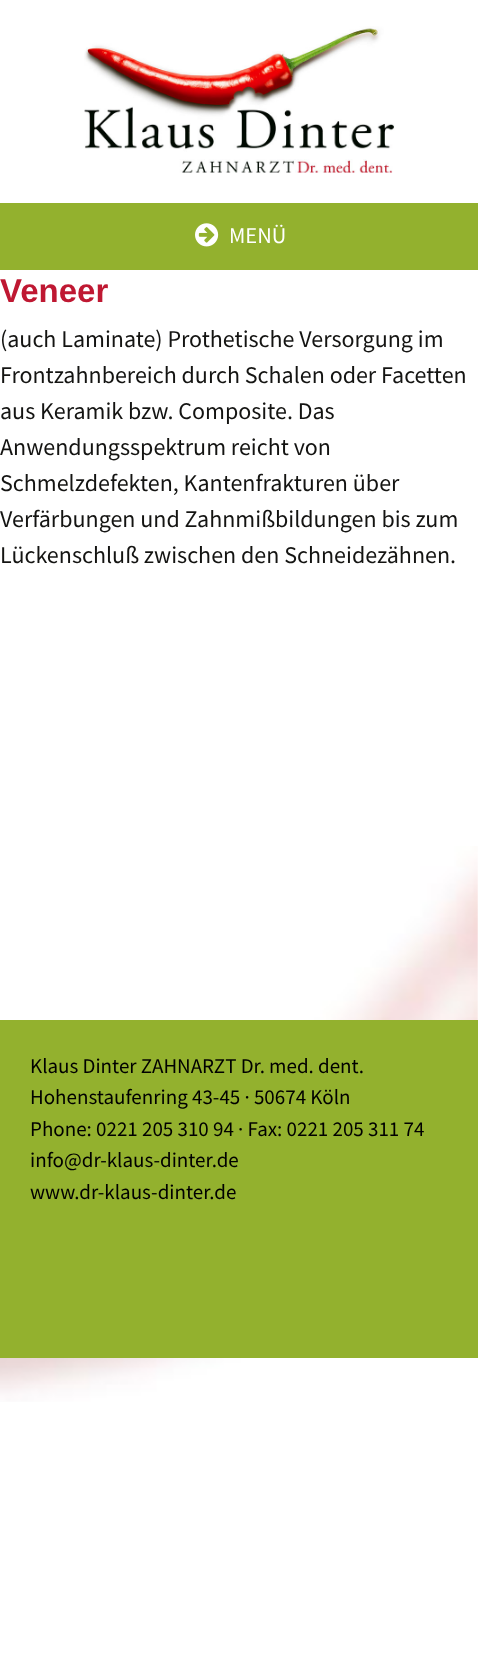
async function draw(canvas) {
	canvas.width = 478;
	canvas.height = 1668;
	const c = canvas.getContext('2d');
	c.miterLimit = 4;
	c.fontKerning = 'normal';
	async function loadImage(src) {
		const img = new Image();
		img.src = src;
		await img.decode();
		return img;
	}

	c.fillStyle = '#fff';
	c.fillRect(0, 0, 478, 1668);
	c.drawImage(await loadImage('img1.png'), 0, 846, 478, 556);
	c.drawImage(await loadImage('img2.png'), 84, 26, 311, 147);
	c.fillStyle = '#93b12e';
	c.fillRect(0, 203, 478, 67);
	c.drawImage(await loadImage('img3.png'), 195, 223, 24, 24);
	c.font = '22.5px Source Sans Pro';
	c.fillStyle = '#fff';
	c.fillText('MENÜ', 229, 243);
	c.font = 'bold 33px Liberation Sans';
	c.fillStyle = '#bf1832';
	c.fillText('Veneer', 0, 302);
	c.font = '24px Source Sans Pro';
	c.fillStyle = '#141412';
	for (const [text, x, y] of [
		['(auch Laminate) Prothetische Versorgung im', 0, 347],
		['Frontzahnbereich durch Schalen oder Facetten', 0, 383],
		['aus Keramik bzw. Composite. Das', 0, 419],
		['Anwendungsspektrum reicht von', 0, 455],
		['Schmelzdefekten, Kantenfrakturen über', 0, 491],
		['Verfärbungen und Zahnmißbildungen bis zum', 0, 527],
		['Lückenschluß zwischen den Schneidezähnen.', 0, 563],
	]) {
		c.fillText(text, x, y);
	}
	c.fillStyle = '#93b12e';
	c.fillRect(0, 1020, 478, 338);
	c.font = '21px Source Sans Pro';
	c.fillStyle = '#000';
	for (const [text, x, y] of [
		['Klaus Dinter ZAHNARZT Dr. med. dent.', 30, 1073],
		['Hohenstaufenring 43-45 · 50674 Köln', 30, 1104],
		['Phone: 0221 205 310 94 · Fax: 0221 205 311 74', 30, 1136],
		['info@dr-klaus-dinter.de', 30, 1167],
		['www.dr-klaus-dinter.de', 30, 1199],
	]) {
		c.fillText(text, x, y);
	}
}

draw(document.querySelector('canvas'));
